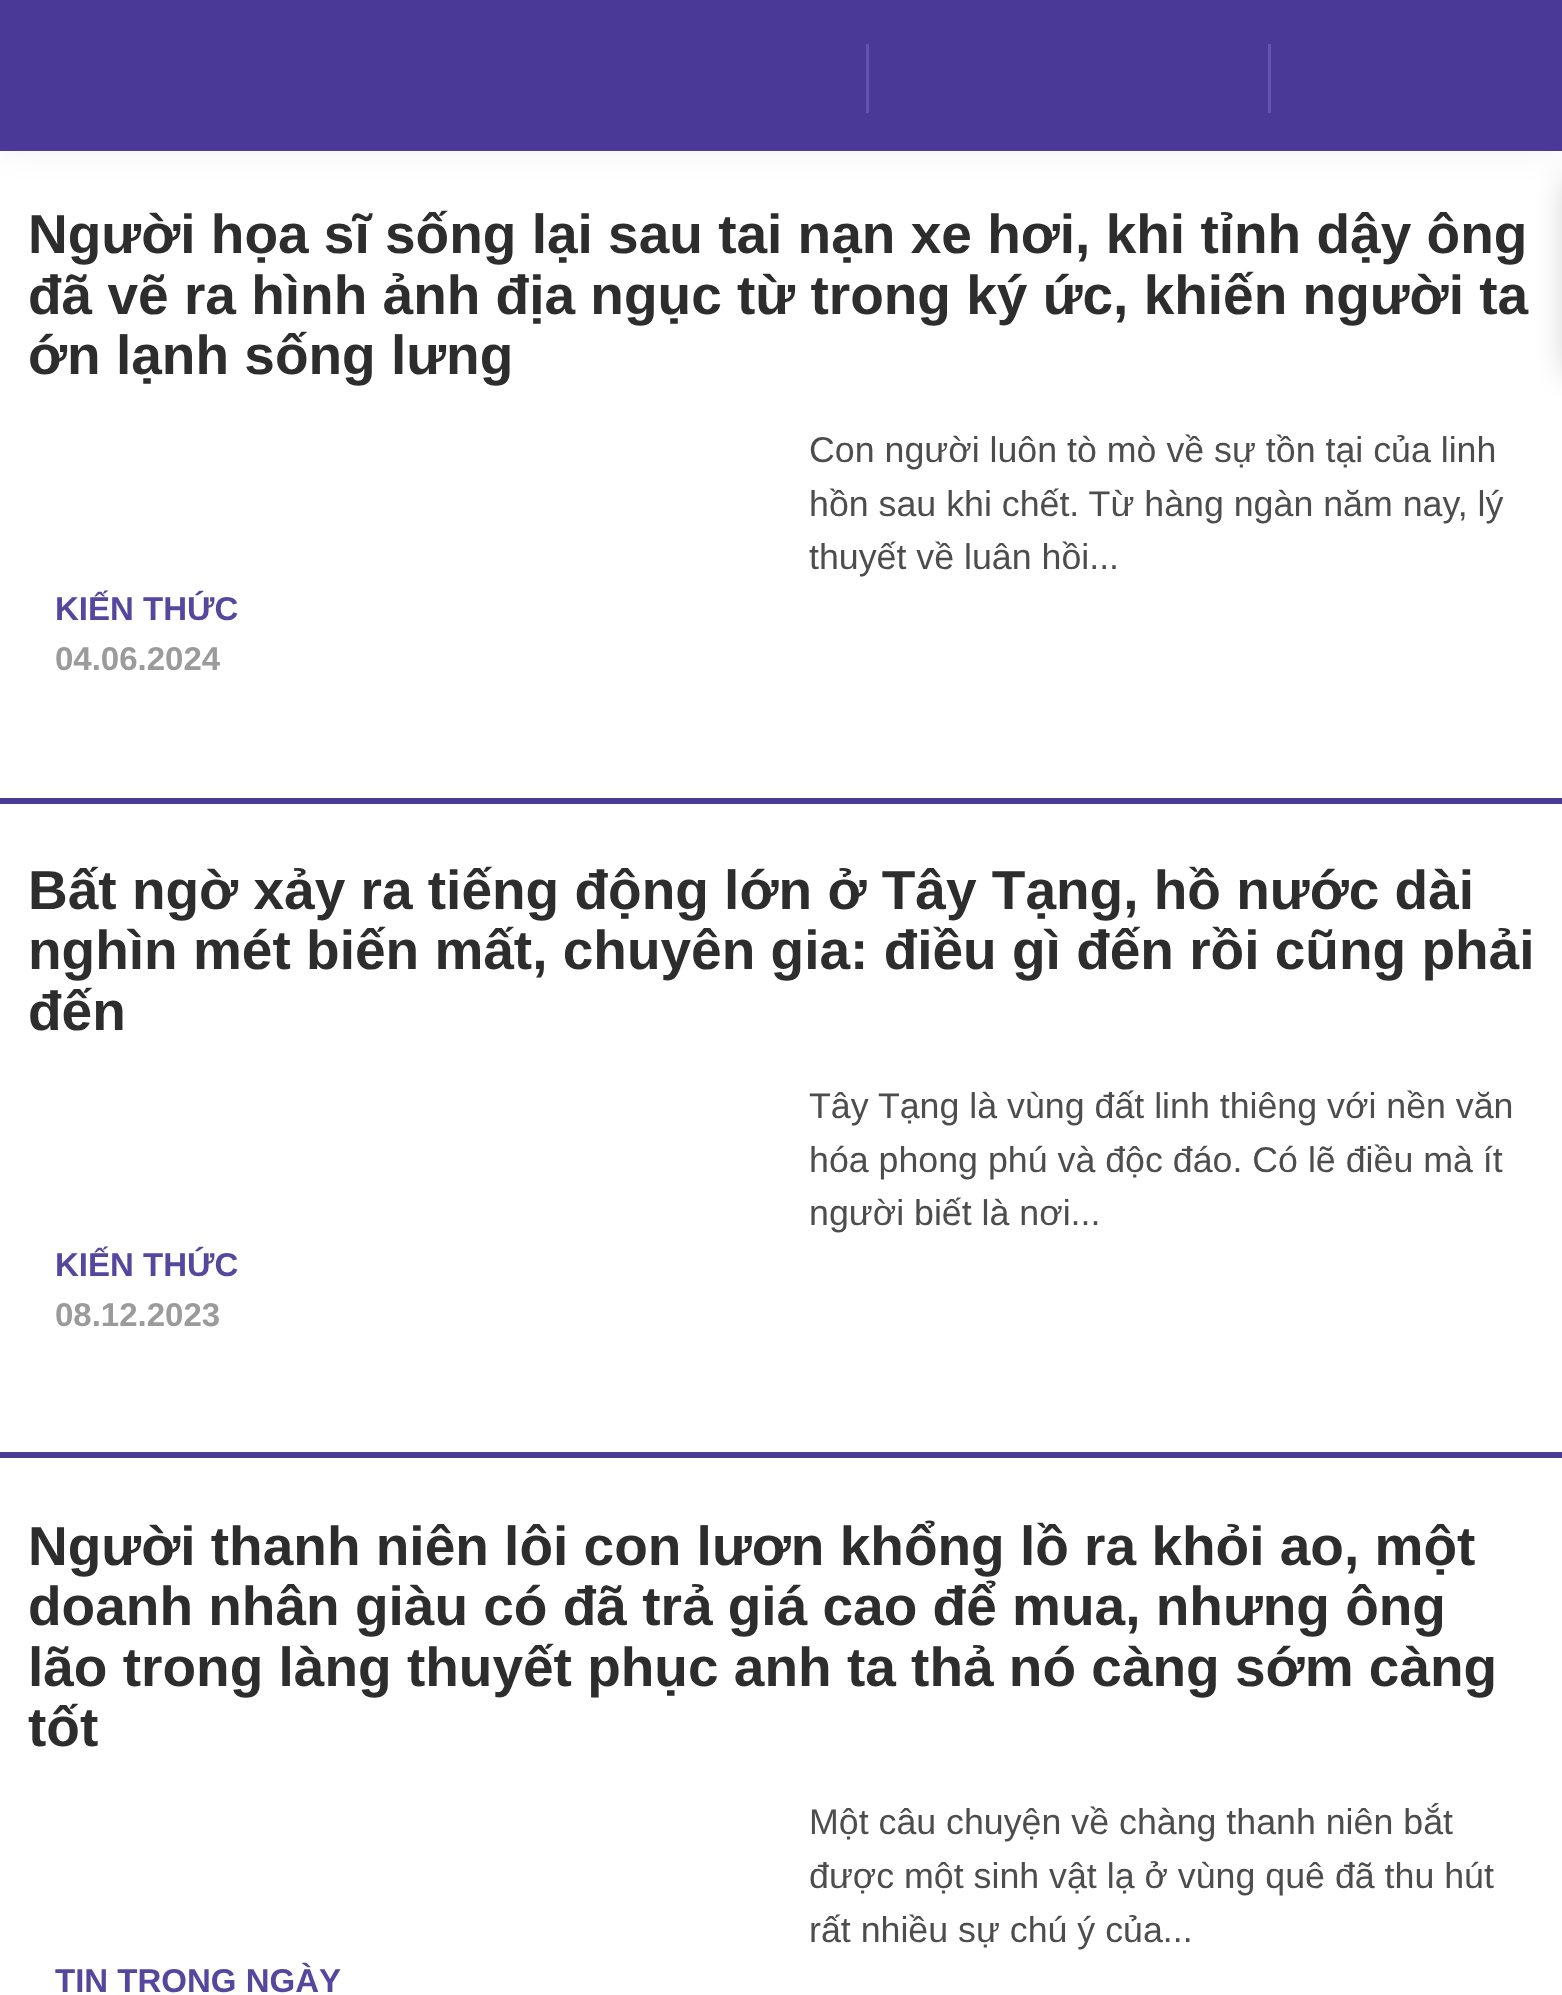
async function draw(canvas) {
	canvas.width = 1562;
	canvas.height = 1995;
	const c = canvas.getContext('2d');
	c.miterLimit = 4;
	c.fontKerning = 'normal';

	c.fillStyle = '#fff';
	c.fillRect(0, 0, 1562, 1995);
	c.fillStyle = '#0000001a';
	c.filter = 'blur(20.5px)';
	c.beginPath();
	c.rect(0, 17, 1562, 123);
	c.fill();
	c.filter = 'none';
	for (const [x, y, w, h, color] of [
		[0, 0, 1562, 151, '#4a3996'],
		[1268, 44, 3, 69, '#6453af'],
		[866, 44, 3, 69, '#6453af'],
	]) {
		c.fillStyle = color;
		c.fillRect(x, y, w, h);
	}
	c.fillStyle = '#00000026';
	c.filter = 'blur(14px)';
	c.beginPath();
	c.rect(1562, 179, 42, 195);
	c.fill();
	c.filter = 'none';
	c.font = 'bold 55px Liberation Sans';
	c.fillStyle = '#2d2d2d';
	for (const [text, x, y] of [
		['Người họa sĩ sống lại sau tai nạn xe hơi, khi tỉnh dậy ông', 28, 253],
		['đã vẽ ra hình ảnh địa ngục từ trong ký ức, khiến người ta', 28, 314],
		['ớn lạnh sống lưng', 28, 374],
	]) {
		c.fillText(text, x, y);
	}
	c.font = '35.75px Liberation Sans';
	c.fillStyle = '#4d4d4d';
	for (const [text, x, y] of [
		['Con người luôn tò mò về sự tồn tại của linh', 809, 462],
		['hồn sau khi chết. Từ hàng ngàn năm nay, lý', 809, 516],
		['thuyết về luân hồi...', 809, 569],
	]) {
		c.fillText(text, x, y);
	}
	c.font = 'bold 33px Liberation Sans';
	c.fillStyle = '#56469d';
	c.fillText('KIẾN THỨC', 55, 620);
	c.fillStyle = '#9b9b9b';
	c.fillText('04.06.2024', 55, 670);
	c.fillStyle = '#4a3996';
	c.fillRect(0, 798, 1562, 6);
	c.font = 'bold 55px Liberation Sans';
	c.fillStyle = '#2d2d2d';
	for (const [text, x, y] of [
		['Bất ngờ xảy ra tiếng động lớn ở Tây Tạng, hồ nước dài', 28, 909],
		['nghìn mét biến mất, chuyên gia: điều gì đến rồi cũng phải', 28, 969],
		['đến', 28, 1030],
	]) {
		c.fillText(text, x, y);
	}
	c.font = '35.75px Liberation Sans';
	c.fillStyle = '#4d4d4d';
	for (const [text, x, y] of [
		['Tây Tạng là vùng đất linh thiêng với nền văn', 809, 1118],
		['hóa phong phú và độc đáo. Có lẽ điều mà ít', 809, 1172],
		['người biết là nơi...', 809, 1225],
	]) {
		c.fillText(text, x, y);
	}
	c.font = 'bold 33px Liberation Sans';
	c.fillStyle = '#56469d';
	c.fillText('KIẾN THỨC', 55, 1276);
	c.fillStyle = '#9b9b9b';
	c.fillText('08.12.2023', 55, 1326);
	c.fillStyle = '#4a3996';
	c.fillRect(0, 1452, 1562, 6);
	c.font = 'bold 55px Liberation Sans';
	c.fillStyle = '#2d2d2d';
	for (const [text, x, y] of [
		['Người thanh niên lôi con lươn khổng lồ ra khỏi ao, một', 28, 1565],
		['doanh nhân giàu có đã trả giá cao để mua, nhưng ông', 28, 1625],
		['lão trong làng thuyết phục anh ta thả nó càng sớm càng', 28, 1686],
		['tốt', 28, 1746],
	]) {
		c.fillText(text, x, y);
	}
	c.font = '35.75px Liberation Sans';
	c.fillStyle = '#4d4d4d';
	for (const [text, x, y] of [
		['Một câu chuyện về chàng thanh niên bắt', 809, 1834],
		['được một sinh vật lạ ở vùng quê đã thu hút', 809, 1888],
		['rất nhiều sự chú ý của...', 809, 1942],
	]) {
		c.fillText(text, x, y);
	}
	c.font = 'bold 33px Liberation Sans';
	c.fillStyle = '#56469d';
	c.fillText('TIN TRONG NGÀY', 55, 1992);
}

draw(document.querySelector('canvas'));
